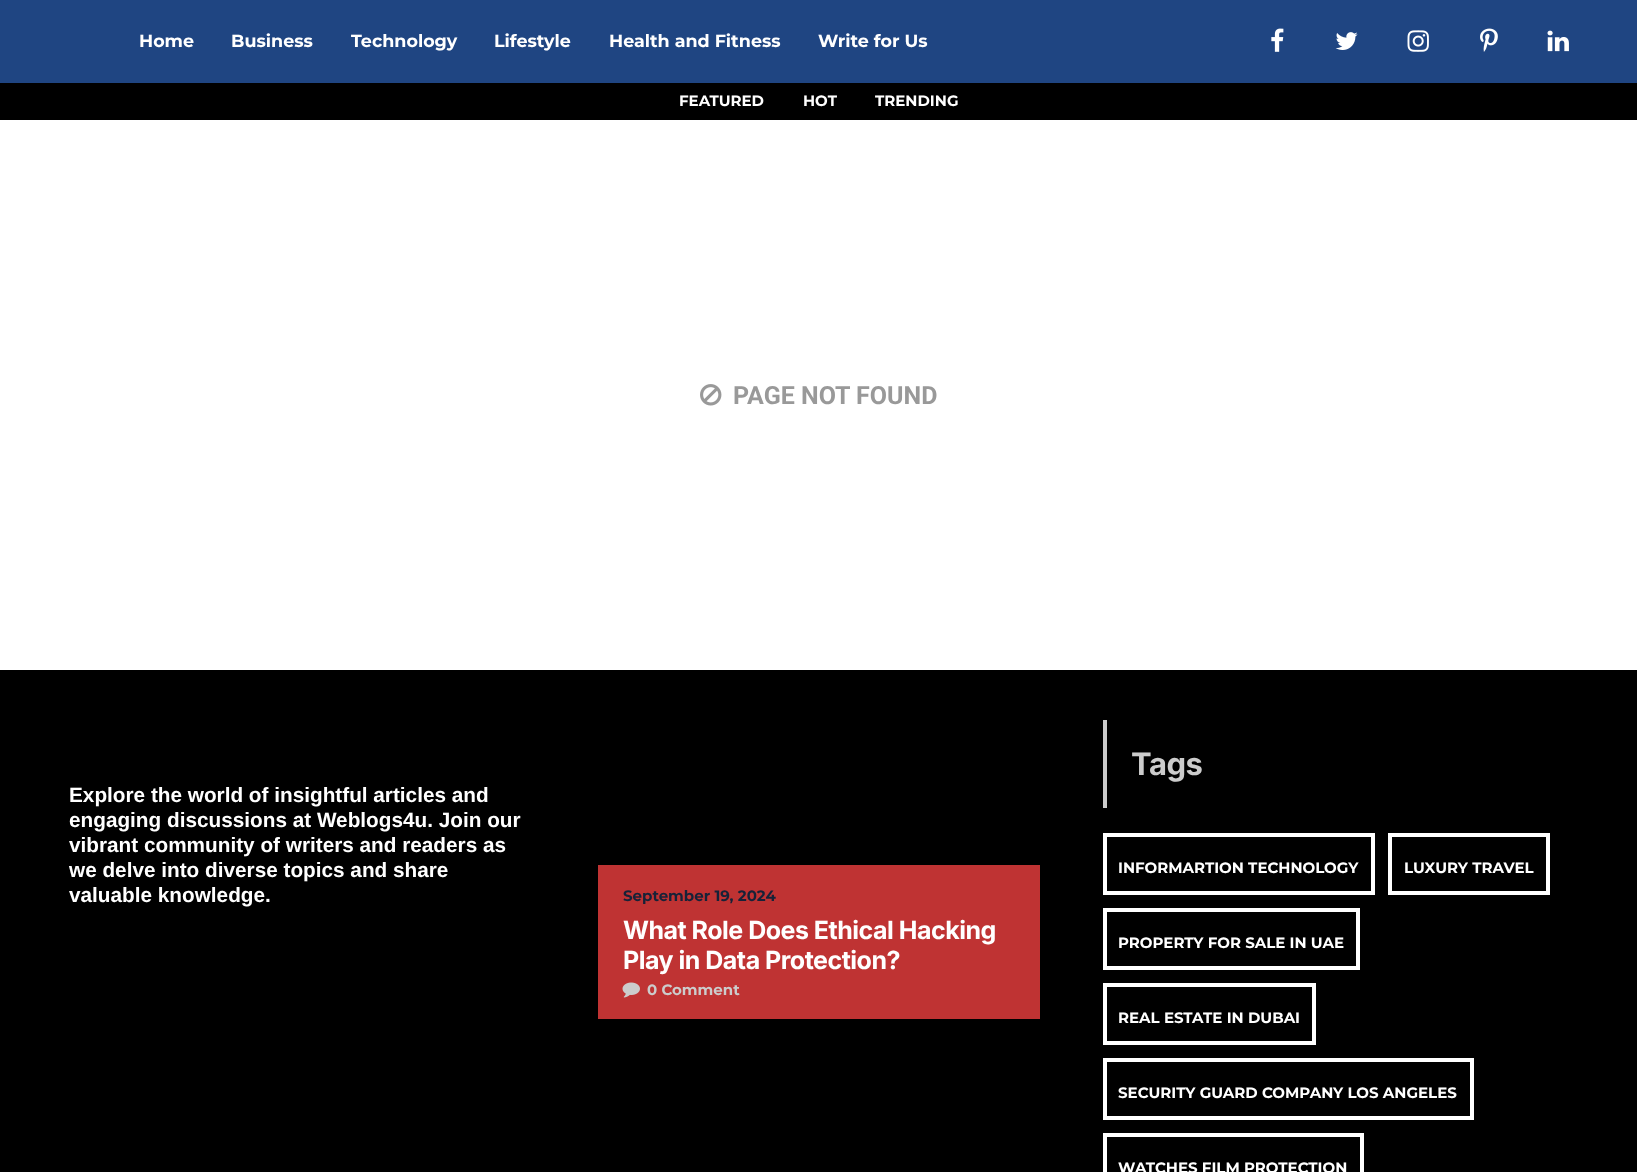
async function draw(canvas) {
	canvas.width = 1637;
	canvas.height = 1172;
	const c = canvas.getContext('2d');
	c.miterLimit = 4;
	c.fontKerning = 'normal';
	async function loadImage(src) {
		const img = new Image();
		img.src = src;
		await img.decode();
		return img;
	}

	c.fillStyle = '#fff';
	c.fillRect(0, 0, 1637, 1172);
	c.fillStyle = '#1f4582';
	c.fillRect(0, 0, 1637, 83);
	c.font = 'bold 17.5px Montserrat';
	c.fillStyle = '#fff';
	for (const [text, x, y] of [
		['Home', 139, 47],
		['Business', 231, 47],
		['Technology', 351, 47],
		['Lifestyle', 494, 47],
		['Health and Fitness', 609, 47],
		['Write for Us', 818, 47],
	]) {
		c.fillText(text, x, y);
	}
	c.drawImage(await loadImage('img1.png'), 1271, 28, 13, 24);
	c.drawImage(await loadImage('img2.png'), 1335, 32, 23, 18);
	c.drawImage(await loadImage('img3.png'), 1407, 30, 22, 22);
	c.drawImage(await loadImage('img4.png'), 1480, 28, 18, 24);
	c.drawImage(await loadImage('img5.png'), 1547, 30, 22, 22);
	c.fillStyle = '#000';
	c.fillRect(0, 83, 1637, 37);
	c.font = 'bold 15px Montserrat';
	c.fillStyle = '#fff';
	for (const [text, x, y] of [
		['FEATURED', 679, 106],
		['HOT', 803, 106],
		['TRENDING', 875, 106],
	]) {
		c.fillText(text, x, y);
	}
	c.drawImage(await loadImage('img6.png'), 700, 384, 22, 22);
	c.font = 'bold 25px Roboto';
	c.fillStyle = '#999';
	c.fillText('PAGE NOT FOUND', 733, 404);
	c.fillStyle = '#000';
	c.fillRect(0, 670, 1637, 502);
	c.font = 'bold 20.75px Liberation Sans';
	c.fillStyle = '#fff';
	for (const [text, x, y] of [
		['Explore the world of insightful articles and', 69, 802],
		['engaging discussions at Weblogs4u. Join our', 69, 827],
		['vibrant community of writers and readers as', 69, 852],
		['we delve into diverse topics and share', 69, 877],
		['valuable knowledge.', 69, 902],
	]) {
		c.fillText(text, x, y);
	}
	c.fillStyle = '#ccc';
	c.fillRect(1103, 720, 4, 88);
	c.letterSpacing = '-0.5px';
	c.font = 'bold 31px Inter';
	c.fillText('Tags', 1131, 775);
	c.strokeStyle = '#fff';
	c.lineWidth = 4;
	c.strokeRect(1105, 835, 268, 58);
	c.letterSpacing = '0px';
	c.font = 'bold 15px Montserrat';
	c.fillStyle = '#fff';
	c.fillText('INFORMARTION TECHNOLOGY', 1118, 873);
	c.strokeRect(1390, 835, 158, 58);
	c.fillText('LUXURY TRAVEL', 1404, 873);
	c.strokeRect(1105, 910, 253, 58);
	c.fillText('PROPERTY FOR SALE IN UAE', 1118, 948);
	c.strokeRect(1105, 985, 209, 58);
	c.fillText('REAL ESTATE IN DUBAI', 1118, 1023);
	c.strokeRect(1105, 1060, 367, 58);
	c.fillText('SECURITY GUARD COMPANY LOS ANGELES', 1118, 1098);
	c.strokeRect(1105, 1135, 257, 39);
	c.fillText('WATCHES FILM PROTECTION', 1118, 1173);
	c.fillStyle = '#bf3333';
	c.fillRect(598, 865, 442, 154);
	c.fillStyle = '#162238';
	c.fillText('September 19, 2024', 623, 901);
	c.letterSpacing = '-0.5px';
	c.font = 'bold 25px Inter';
	c.fillStyle = '#fff';
	c.fillText('What Role Does Ethical Hacking', 623, 939);
	c.fillText('Play in Data Protection?', 623, 969);
	c.drawImage(await loadImage('img7.png'), 622, 982, 18, 16);
	c.letterSpacing = '0px';
	c.font = 'bold 15px Montserrat';
	c.fillStyle = '#ccc';
	c.fillText('0 Comment', 647, 995);
}

draw(document.querySelector('canvas'));
